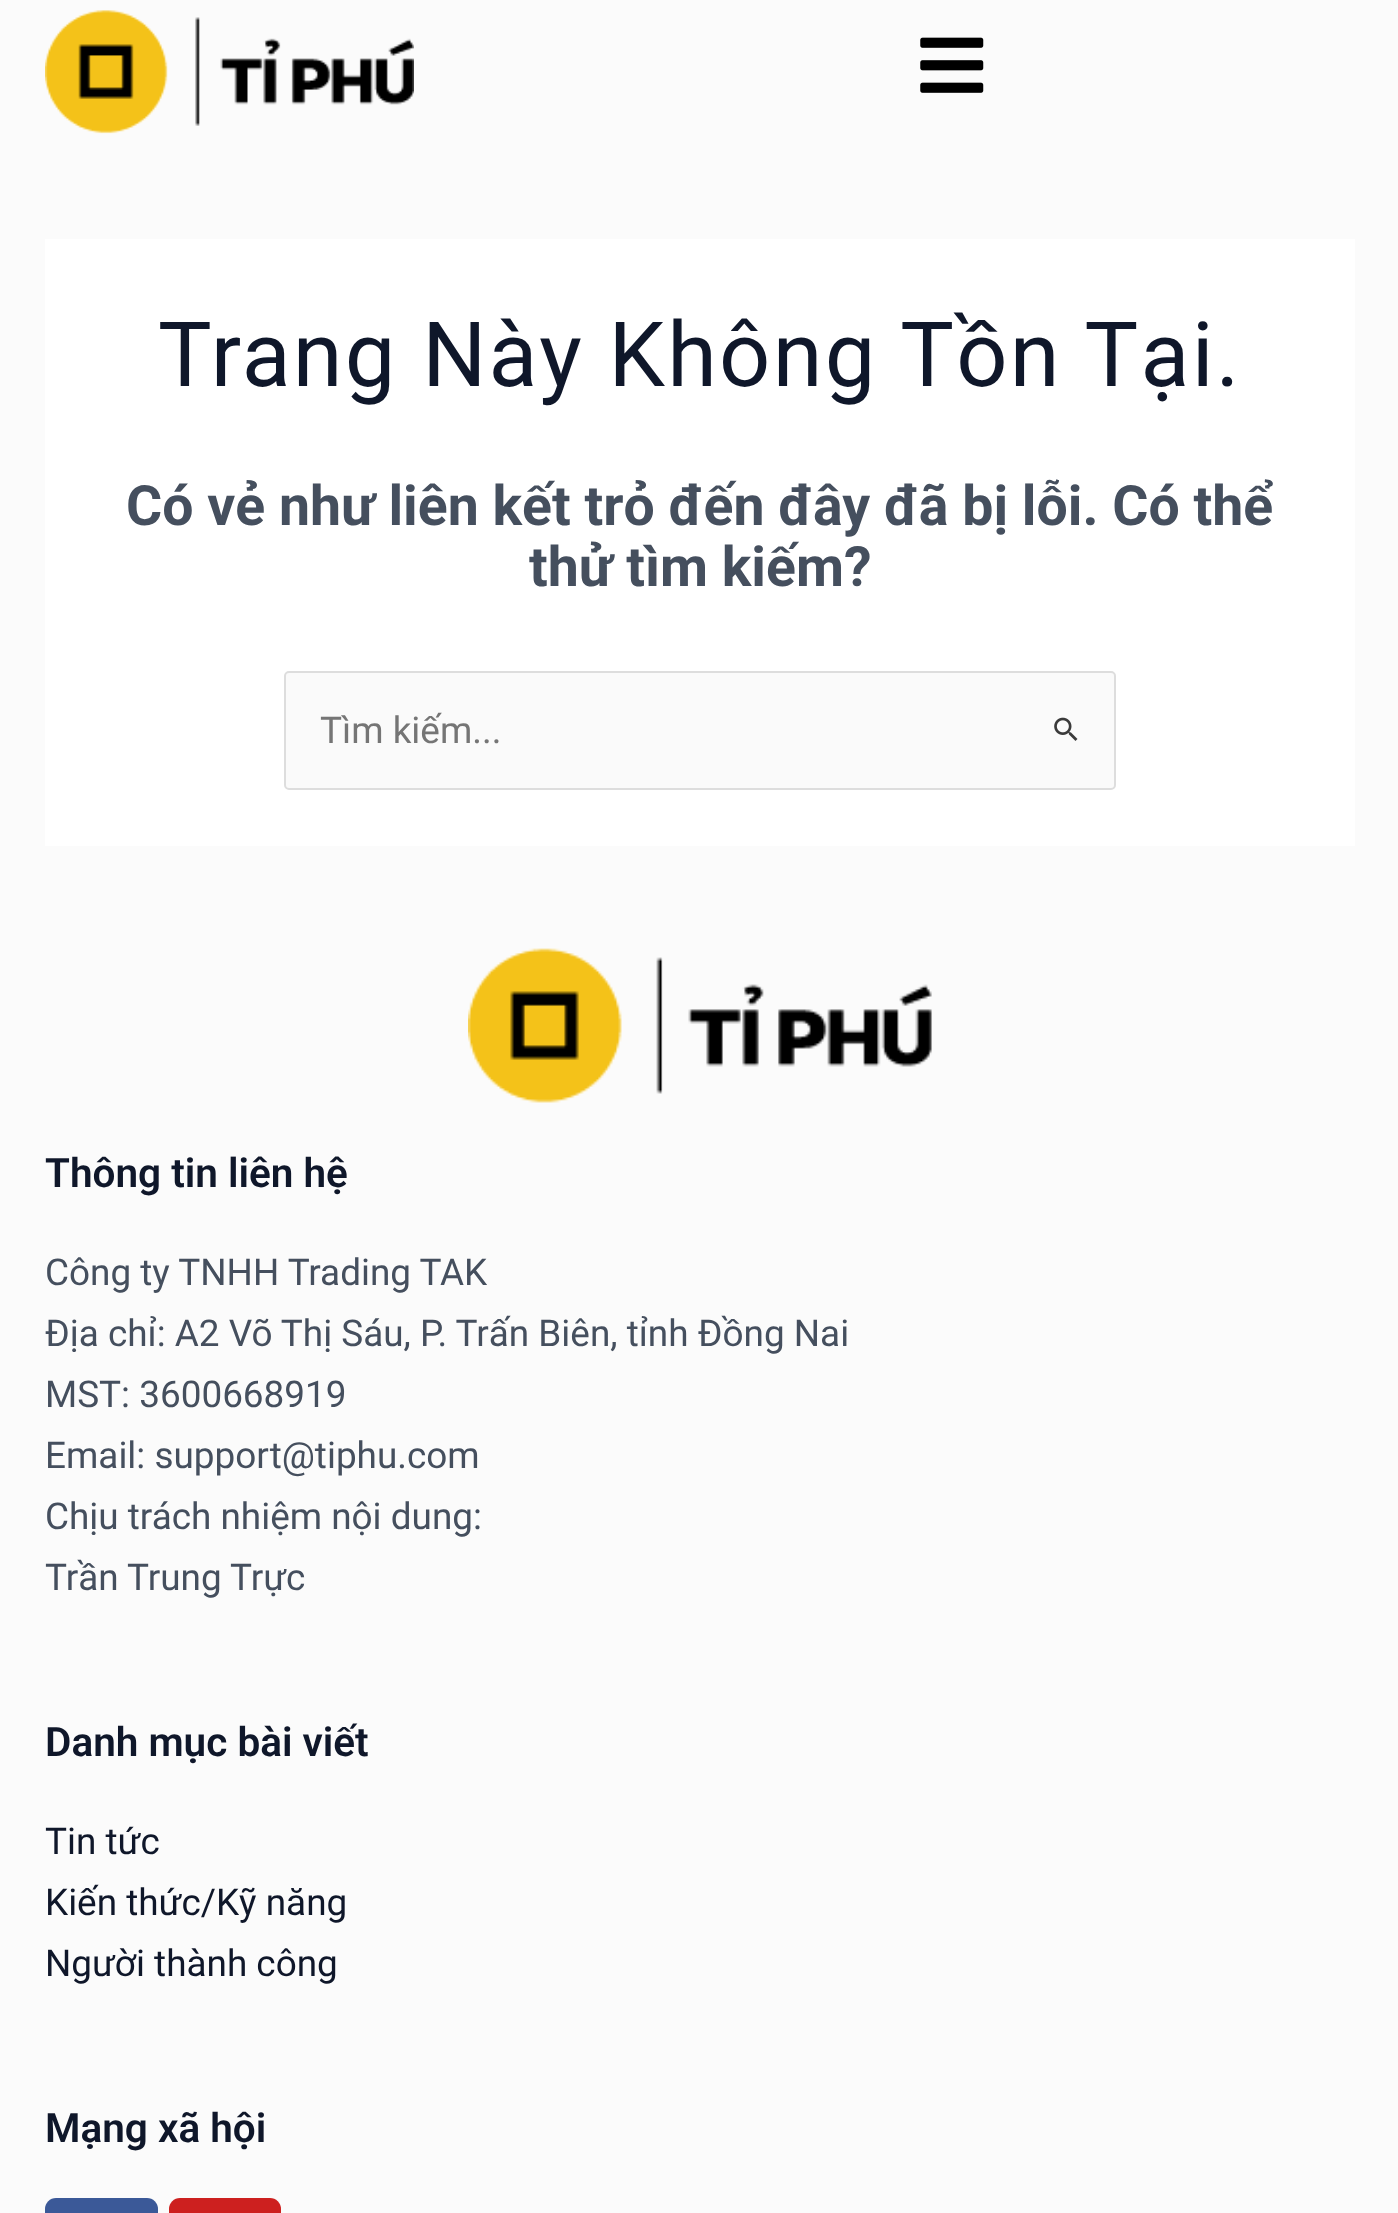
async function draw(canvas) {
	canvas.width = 1398;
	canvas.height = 2213;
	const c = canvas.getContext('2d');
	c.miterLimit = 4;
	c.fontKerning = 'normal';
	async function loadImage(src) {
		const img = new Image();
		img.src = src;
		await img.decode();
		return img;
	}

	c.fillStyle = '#fbfbfb';
	c.fillRect(0, 0, 1398, 2213);
	c.drawImage(await loadImage('img1.png'), 45, 10, 369, 124);
	c.drawImage(await loadImage('img2.png'), 920, 37, 64, 56);
	c.fillStyle = '#fff';
	c.fillRect(45, 239, 1310, 607);
	c.letterSpacing = '2.25px';
	c.font = '90px Roboto';
	c.fillStyle = '#0f172a';
	c.fillText('Trang Này Không Tồn Tại.', 158, 386);
	c.letterSpacing = '0px';
	c.font = 'bold 55.4px Roboto';
	c.fillStyle = '#454f5e';
	c.fillText('Có vẻ như liên kết trỏ đến đây đã bị lỗi. Có thể', 126, 525);
	c.fillText('thử tìm kiếm?', 529, 586);
	c.fillStyle = '#fafafa';
	c.beginPath();
	c.roundRect(285, 672, 830, 117, 4);
	c.fill();
	c.strokeStyle = '#ddd';
	c.lineWidth = 2;
	c.stroke();
	c.font = '36.9px Roboto';
	c.fillStyle = '#757575';
	c.fillText('Tìm kiếm...', 320, 743);
	c.drawImage(await loadImage('img3.png'), 1054, 717, 24, 24);
	c.drawImage(await loadImage('img4.png'), 468, 948, 464, 155);
	c.font = '600 40.5px Roboto';
	c.fillStyle = '#0f172a';
	c.fillText('Thông tin liên hệ', 45, 1187);
	c.font = '36.9px Roboto';
	c.fillStyle = '#454f5e';
	for (const [text, x, y] of [
		['Công ty TNHH Trading TAK', 45, 1285],
		['Địa chỉ: A2 Võ Thị Sáu, P. Trấn Biên, tỉnh Đồng Nai', 45, 1346],
		['MST: 3600668919', 45, 1407],
		['Email: support@tiphu.com', 45, 1468],
		['Chịu trách nhiệm nội dung:', 45, 1529],
		['Trần Trung Trực', 45, 1590],
	]) {
		c.fillText(text, x, y);
	}
	c.font = '600 40.5px Roboto';
	c.fillStyle = '#0f172a';
	c.fillText('Danh mục bài viết', 45, 1756);
	c.font = '36.9px Roboto';
	for (const [text, x, y] of [
		['Tin tức', 45, 1854],
		['Kiến thức/Kỹ năng', 45, 1915],
		['Người thành công', 45, 1976],
	]) {
		c.fillText(text, x, y);
	}
	c.font = '600 40.5px Roboto';
	c.fillText('Mạng xã hội', 45, 2142);
	c.fillStyle = '#3b5998';
	c.beginPath();
	c.roundRect(45, 2198, 113, 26, 11);
	c.fill();
	c.fillStyle = '#cd201f';
	c.beginPath();
	c.roundRect(169, 2198, 112, 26, 11);
	c.fill();
}

draw(document.querySelector('canvas'));
